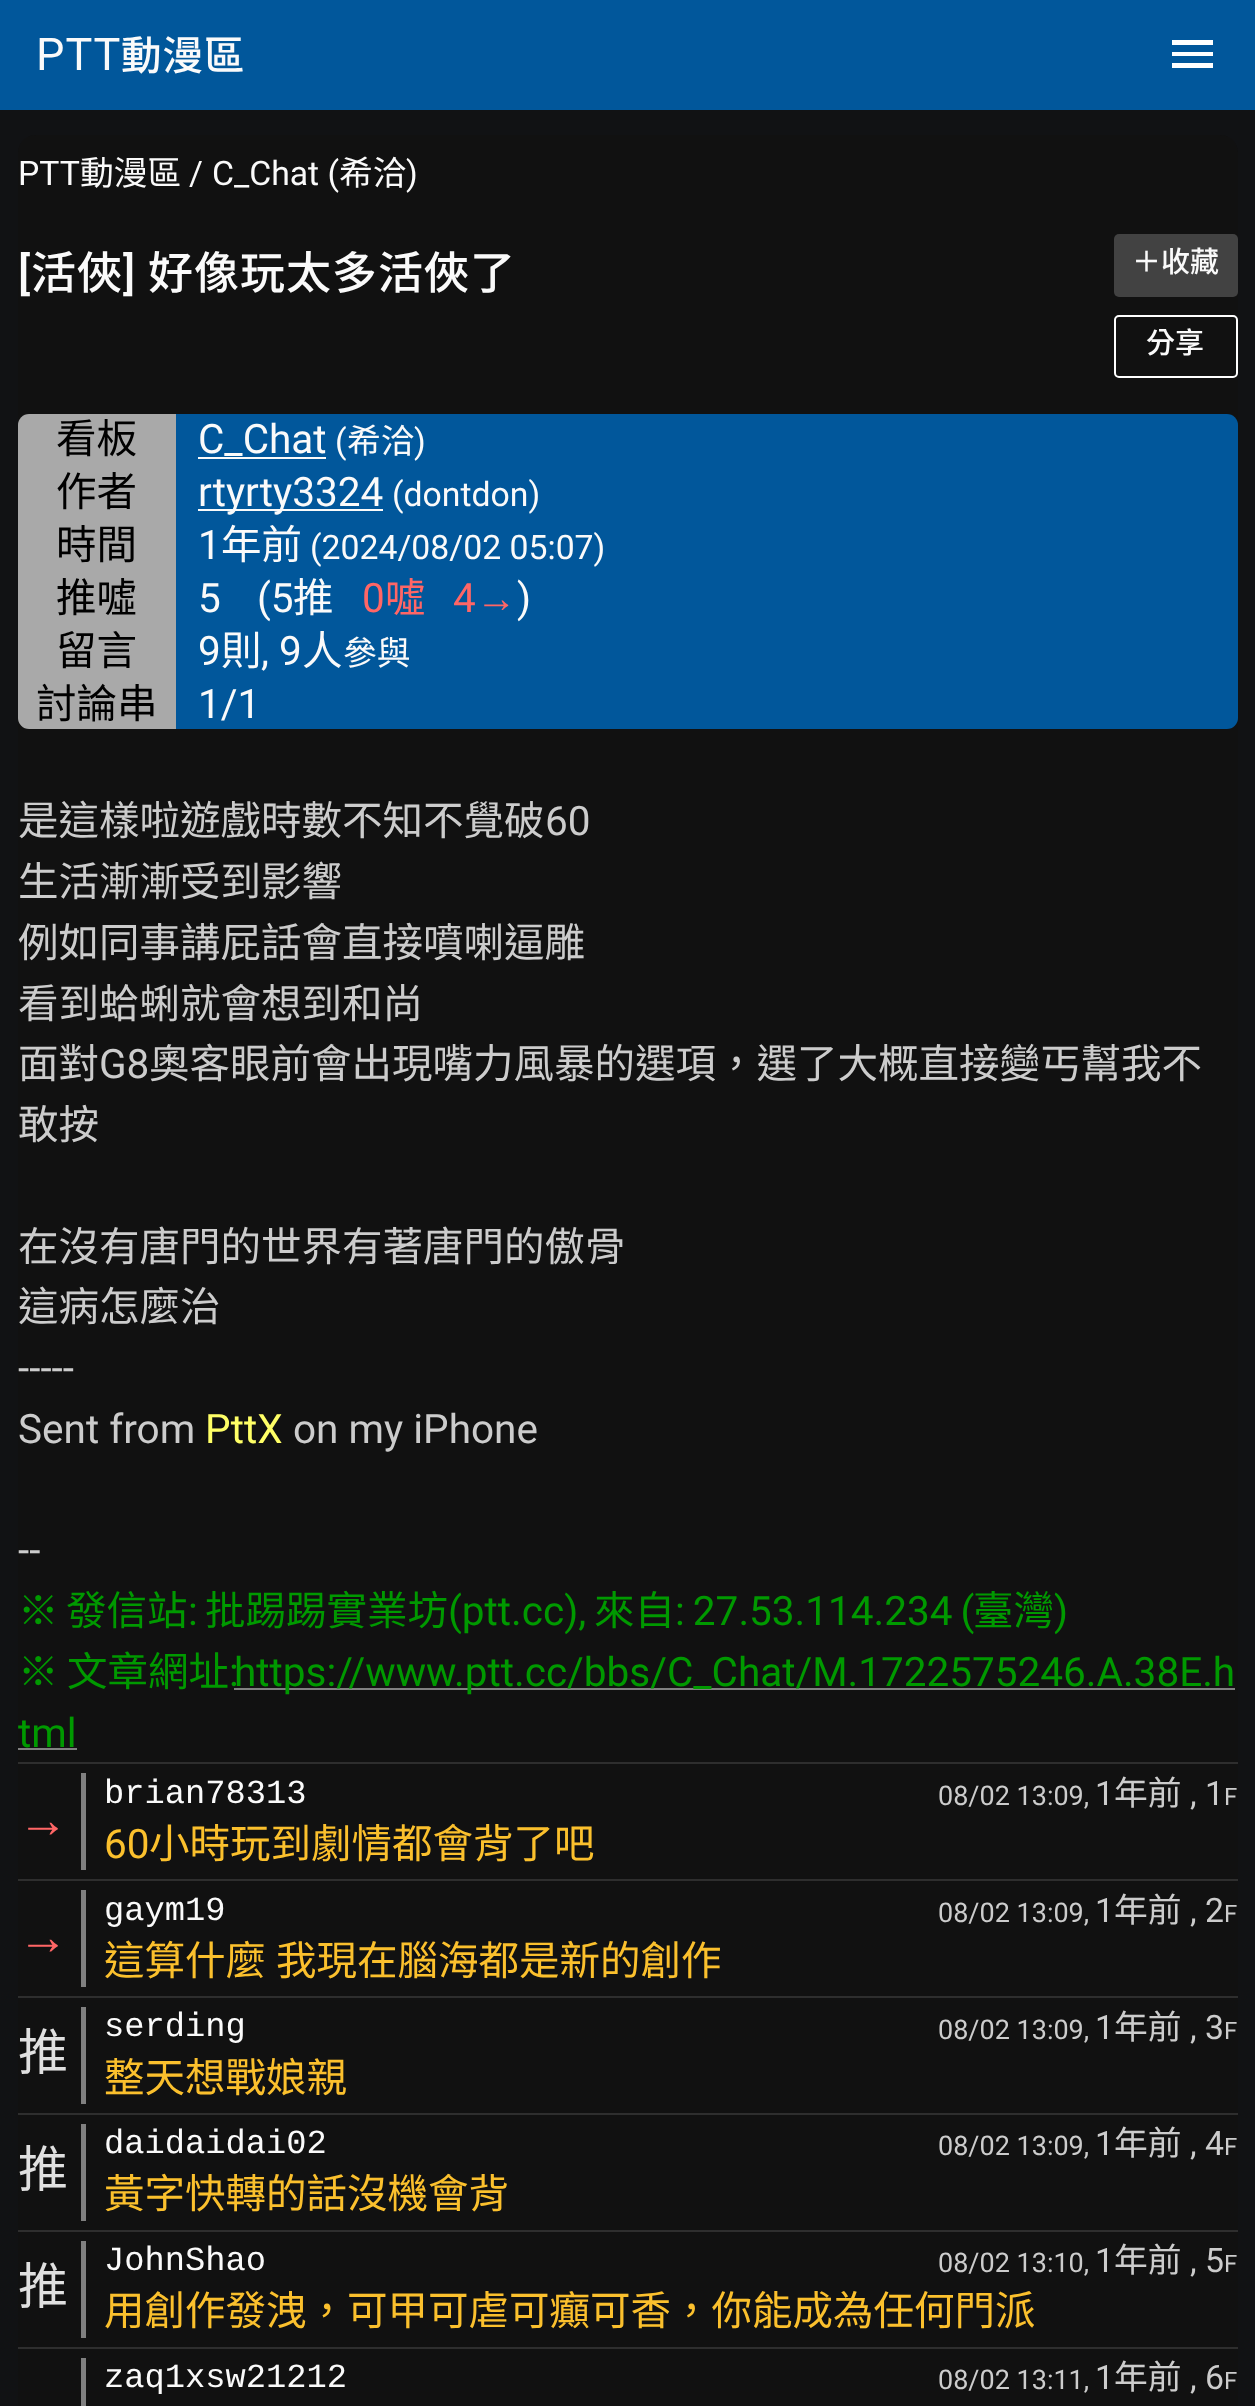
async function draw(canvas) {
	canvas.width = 1255;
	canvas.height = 2406;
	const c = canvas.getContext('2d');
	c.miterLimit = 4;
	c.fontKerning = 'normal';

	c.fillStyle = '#111214';
	c.fillRect(0, 0, 1255, 2406);
	c.fillStyle = '#01579b';
	c.fillRect(0, 0, 1255, 110);
	c.letterSpacing = '1px';
	c.font = '45px Roboto';
	c.fillStyle = '#fafafa';
	c.fillText('PTT', 36, 70);
	c.font = '500 40.5px Noto Sans CJK TC';
	c.fillText('動漫區', 121, 70);
	c.fillStyle = '#fff';
	c.beginPath();
	c.moveTo(1172, 40);
	c.lineTo(1213, 40);
	c.lineTo(1213, 45);
	c.lineTo(1172, 45);
	c.lineTo(1172, 40);
	c.moveTo(1172, 52);
	c.lineTo(1213, 52);
	c.lineTo(1213, 56);
	c.lineTo(1172, 56);
	c.lineTo(1172, 52);
	c.moveTo(1172, 63);
	c.lineTo(1213, 63);
	c.lineTo(1213, 68);
	c.lineTo(1172, 68);
	c.closePath();
	c.fill();
	c.fillStyle = '#111';
	c.beginPath();
	c.roundRect(18, 135, 1220, 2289, 18);
	c.fill();
	c.letterSpacing = '0px';
	c.font = '33.75px Roboto';
	c.fillStyle = '#fafafa';
	c.fillText('PTT', 18, 185);
	c.font = '33.75px Noto Sans CJK TC';
	c.fillText('動漫區', 80, 185);
	c.font = '33.75px Roboto';
	c.fillText('/', 189, 185);
	c.fillText('C_Chat (', 212, 185);
	c.font = '33.75px Noto Sans CJK TC';
	c.fillText('希洽', 339, 185);
	c.font = '33.75px Roboto';
	c.fillText(')', 406, 185);
	c.letterSpacing = '1px';
	c.font = '500 45px Roboto';
	c.fillText('[', 18, 289);
	c.font = '500 45px Noto Sans CJK TC';
	c.fillText('活俠', 31, 289);
	c.font = '500 45px Roboto';
	c.fillText(']', 123, 289);
	c.font = '500 45px Noto Sans CJK TC';
	c.fillText('好像玩太多活俠了', 148, 289);
	c.fillStyle = '#424242';
	c.beginPath();
	c.roundRect(1114, 234, 124, 63, 5);
	c.fill();
	c.letterSpacing = '0px';
	c.font = '500 29px Noto Sans CJK TC';
	c.fillStyle = '#fafafa';
	c.fillText('＋收藏', 1132, 272);
	c.beginPath();
	c.roundRect(1115, 316, 122, 61, 4);
	c.strokeStyle = '#fff';
	c.lineWidth = 2;
	c.stroke();
	c.fillText('分享', 1146, 353);
	c.fillStyle = '#a9a9a9';
	c.beginPath();
	c.roundRect(18, 414, 158, 52, [11, 0, 0, 0]);
	c.fill();
	c.font = '40.5px Noto Sans CJK TC';
	c.fillStyle = '#000';
	c.fillText('看板', 56, 453);
	c.fillStyle = '#01579b';
	c.beginPath();
	c.roundRect(176, 414, 1062, 52, [0, 11, 0, 0]);
	c.fill();
	c.font = '40.5px Roboto';
	c.fillStyle = '#fafafa';
	c.fillText('C_Chat', 198, 453);
	c.fillRect(198, 457, 128, 2);
	c.font = '33.75px Roboto';
	c.fillText('(', 335, 453);
	c.font = '33.75px Noto Sans CJK TC';
	c.fillText('希洽', 347, 453);
	c.font = '33.75px Roboto';
	c.fillText(')', 414, 453);
	c.fillStyle = '#a9a9a9';
	c.fillRect(18, 466, 158, 211);
	c.font = '40.5px Noto Sans CJK TC';
	c.fillStyle = '#000';
	c.fillText('作者', 56, 506);
	c.fillStyle = '#01579b';
	c.fillRect(176, 466, 1062, 211);
	c.fillStyle = '#fafafa';
	c.fillRect(198, 509, 185, 2);
	c.font = '40.5px Roboto';
	c.fillText('rtyrty3324', 198, 506);
	c.font = '33.75px Roboto';
	c.fillText('(dontdon)', 392, 506);
	c.font = '40.5px Noto Sans CJK TC';
	c.fillStyle = '#000';
	c.fillText('時間', 56, 559);
	c.font = '40.5px Roboto';
	c.fillStyle = '#fafafa';
	c.fillText('1', 198, 559);
	c.font = '40.5px Noto Sans CJK TC';
	c.fillText('年前', 221, 559);
	c.font = '33.75px Roboto';
	c.fillText('(2024/08/02 05:07)', 310, 559);
	c.font = '40.5px Noto Sans CJK TC';
	c.fillStyle = '#000';
	c.fillText('推噓', 56, 612);
	c.font = '40.5px Roboto';
	c.fillStyle = '#fafafa';
	c.fillText('5', 198, 612);
	c.fillText('(5', 257, 612);
	c.font = '40.5px Noto Sans CJK TC';
	c.fillText('推', 293, 612);
	c.font = '40.5px Roboto';
	c.fillStyle = '#f66';
	c.fillText('0', 362, 612);
	c.font = '40.5px Noto Sans CJK TC';
	c.fillText('噓', 385, 612);
	c.font = '40.5px Roboto';
	c.fillText('4', 453, 612);
	c.font = '40.5px Liberation Sans';
	c.fillText('→', 476, 612);
	c.font = '40.5px Roboto';
	c.fillStyle = '#fafafa';
	c.fillText(')', 517, 612);
	c.font = '40.5px Noto Sans CJK TC';
	c.fillStyle = '#000';
	c.fillText('留言', 56, 665);
	c.font = '40.5px Roboto';
	c.fillStyle = '#fafafa';
	c.fillText('9', 198, 665);
	c.font = '40.5px Noto Sans CJK TC';
	c.fillText('則', 221, 665);
	c.font = '40.5px Roboto';
	c.fillText(', 9', 261, 665);
	c.font = '40.5px Noto Sans CJK TC';
	c.fillText('人', 302, 665);
	c.font = '33.75px Noto Sans CJK TC';
	c.fillText('參與', 343, 665);
	c.fillStyle = '#a9a9a9';
	c.beginPath();
	c.roundRect(18, 677, 158, 52, [0, 0, 0, 11]);
	c.fill();
	c.font = '40.5px Noto Sans CJK TC';
	c.fillStyle = '#000';
	c.fillText('討論串', 36, 718);
	c.fillStyle = '#01579b';
	c.beginPath();
	c.roundRect(176, 677, 1062, 52, [0, 0, 11, 0]);
	c.fill();
	c.font = '40.5px Roboto';
	c.fillStyle = '#fafafa';
	c.fillText('1/1', 198, 718);
	c.font = '40.5px Noto Sans CJK TC';
	c.fillStyle = '#ccc';
	c.fillText('是這樣啦遊戲時數不知不覺破', 18, 835);
	c.font = '40.5px Roboto';
	c.fillText('60', 545, 835);
	c.font = '40.5px Noto Sans CJK TC';
	for (const [text, x, y] of [
		['生活漸漸受到影響', 18, 896],
		['例如同事講屁話會直接噴喇逼雕', 18, 957],
		['看到蛤蜊就會想到和尚', 18, 1018],
		['面對', 18, 1078],
	]) {
		c.fillText(text, x, y);
	}
	c.font = '40.5px Roboto';
	c.fillText('G8', 99, 1078);
	c.font = '40.5px Noto Sans CJK TC';
	for (const [text, x, y] of [
		['奧客眼前會出現嘴力風暴的選項，選了大概直接變丐幫我不', 149, 1078],
		['敢按', 18, 1139],
		['在沒有唐門的世界有著唐門的傲骨', 18, 1261],
		['這病怎麼治', 18, 1321],
	]) {
		c.fillText(text, x, y);
	}
	c.font = '40.5px Roboto';
	c.fillText('-----', 18, 1382);
	c.fillText('Sent from', 18, 1443);
	c.fillStyle = '#ff6';
	c.fillText('PttX', 205, 1443);
	c.fillStyle = '#ccc';
	c.fillText('on my iPhone', 293, 1443);
	c.fillText('--', 18, 1564);
	c.font = '40.5px Noto Sans CJK TC';
	c.fillStyle = '#090';
	c.fillText('※', 18, 1625);
	c.fillText('發信站', 66, 1625);
	c.font = '40.5px Roboto';
	c.fillText(':', 188, 1625);
	c.font = '40.5px Noto Sans CJK TC';
	c.fillText('批踢踢實業坊', 205, 1625);
	c.font = '40.5px Roboto';
	c.fillText('(ptt.cc),', 448, 1625);
	c.font = '40.5px Noto Sans CJK TC';
	c.fillText('來自', 594, 1625);
	c.wordSpacing = '-2px';
	c.font = '40.5px Roboto';
	c.fillText(': 27.53.114.234 (', 675, 1625);
	c.wordSpacing = '0px';
	c.font = '40.5px Noto Sans CJK TC';
	c.fillText('臺灣', 973, 1625);
	c.font = '40.5px Roboto';
	c.fillText(')', 1054, 1625);
	c.font = '40.5px Noto Sans CJK TC';
	c.fillText('※', 18, 1686);
	c.fillText('文章網址', 67, 1686);
	c.font = '40.5px Roboto';
	c.fillText(':', 229, 1686);
	c.fillStyle = '#808080';
	c.fillRect(234, 1688, 1001, 2);
	c.fillStyle = '#090';
	c.fillText('https://www.ptt.cc/bbs/C_Chat/M.1722575246.A.38E.h', 234, 1686);
	c.fillText('tml', 18, 1747);
	for (const [x, y, w, h, color] of [
		[18, 1748, 59, 2, '#808080'],
		[18, 1762, 1220, 2, '#2e2e2e'],
		[81, 1773, 5, 97, '#808080'],
	]) {
		c.fillStyle = color;
		c.fillRect(x, y, w, h);
	}
	c.font = '50px Liberation Sans';
	c.fillStyle = '#f66';
	c.fillText('→', 18, 1837);
	c.font = '33.75px Liberation Mono';
	c.fillStyle = '#fafafa';
	c.fillText('brian78313', 104, 1803);
	c.font = '27px Roboto';
	c.fillStyle = '#ccc';
	c.fillText('08/02 13:09,', 938, 1805);
	c.font = '33.75px Roboto';
	c.fillText('1', 1095, 1805);
	c.font = '33.75px Noto Sans CJK TC';
	c.fillText('年前', 1114, 1805);
	c.font = '33.75px Roboto';
	c.fillText(', 1', 1190, 1805);
	c.font = '24px Roboto';
	c.fillText('F', 1224, 1805);
	c.font = '40.5px Roboto';
	c.fillStyle = '#fbc02d';
	c.fillText('60', 104, 1858);
	c.font = '40.5px Noto Sans CJK TC';
	c.fillText('小時玩到劇情都會背了吧', 149, 1858);
	c.fillStyle = '#2e2e2e';
	c.fillRect(18, 1879, 1220, 2);
	c.fillStyle = '#808080';
	c.fillRect(81, 1890, 5, 97);
	c.font = '50px Liberation Sans';
	c.fillStyle = '#f66';
	c.fillText('→', 18, 1954);
	c.font = '33.75px Liberation Mono';
	c.fillStyle = '#fafafa';
	c.fillText('gaym19', 104, 1920);
	c.font = '27px Roboto';
	c.fillStyle = '#ccc';
	c.fillText('08/02 13:09,', 938, 1922);
	c.font = '33.75px Roboto';
	c.fillText('1', 1095, 1922);
	c.font = '33.75px Noto Sans CJK TC';
	c.fillText('年前', 1114, 1922);
	c.font = '33.75px Roboto';
	c.fillText(', 2', 1190, 1922);
	c.font = '24px Roboto';
	c.fillText('F', 1224, 1922);
	c.wordSpacing = '1px';
	c.font = '40.5px Noto Sans CJK TC';
	c.fillStyle = '#fbc02d';
	c.fillText('這算什麼 我現在腦海都是新的創作', 104, 1975);
	c.fillStyle = '#2e2e2e';
	c.fillRect(18, 1996, 1220, 2);
	c.fillStyle = '#808080';
	c.fillRect(81, 2007, 5, 97);
	c.wordSpacing = '0px';
	c.font = '50px Noto Sans CJK TC';
	c.fillStyle = '#e0e0e0';
	c.fillText('推', 18, 2070);
	c.font = '33.75px Liberation Mono';
	c.fillStyle = '#fafafa';
	c.fillText('serding', 104, 2036);
	c.font = '27px Roboto';
	c.fillStyle = '#ccc';
	c.fillText('08/02 13:09,', 938, 2039);
	c.font = '33.75px Roboto';
	c.fillText('1', 1095, 2039);
	c.font = '33.75px Noto Sans CJK TC';
	c.fillText('年前', 1114, 2039);
	c.font = '33.75px Roboto';
	c.fillText(', 3', 1190, 2039);
	c.font = '24px Roboto';
	c.fillText('F', 1224, 2039);
	c.font = '40.5px Noto Sans CJK TC';
	c.fillStyle = '#fbc02d';
	c.fillText('整天想戰娘親', 104, 2092);
	c.fillStyle = '#2e2e2e';
	c.fillRect(18, 2113, 1220, 2);
	c.fillStyle = '#808080';
	c.fillRect(81, 2124, 5, 97);
	c.font = '50px Noto Sans CJK TC';
	c.fillStyle = '#e0e0e0';
	c.fillText('推', 18, 2187);
	c.font = '33.75px Liberation Mono';
	c.fillStyle = '#fafafa';
	c.fillText('daidaidai02', 104, 2153);
	c.font = '27px Roboto';
	c.fillStyle = '#ccc';
	c.fillText('08/02 13:09,', 938, 2155);
	c.font = '33.75px Roboto';
	c.fillText('1', 1095, 2155);
	c.font = '33.75px Noto Sans CJK TC';
	c.fillText('年前', 1114, 2155);
	c.font = '33.75px Roboto';
	c.fillText(', 4', 1190, 2155);
	c.font = '24px Roboto';
	c.fillText('F', 1224, 2155);
	c.font = '40.5px Noto Sans CJK TC';
	c.fillStyle = '#fbc02d';
	c.fillText('黃字快轉的話沒機會背', 104, 2208);
	c.fillStyle = '#2e2e2e';
	c.fillRect(18, 2230, 1220, 2);
	c.fillStyle = '#808080';
	c.fillRect(81, 2241, 5, 97);
	c.font = '50px Noto Sans CJK TC';
	c.fillStyle = '#e0e0e0';
	c.fillText('推', 18, 2304);
	c.font = '33.75px Liberation Mono';
	c.fillStyle = '#fafafa';
	c.fillText('JohnShao', 104, 2270);
	c.font = '27px Roboto';
	c.fillStyle = '#ccc';
	c.fillText('08/02 13:10,', 938, 2272);
	c.font = '33.75px Roboto';
	c.fillText('1', 1095, 2272);
	c.font = '33.75px Noto Sans CJK TC';
	c.fillText('年前', 1114, 2272);
	c.font = '33.75px Roboto';
	c.fillText(', 5', 1190, 2272);
	c.font = '24px Roboto';
	c.fillText('F', 1224, 2272);
	c.font = '40.5px Noto Sans CJK TC';
	c.fillStyle = '#fbc02d';
	c.fillText('用創作發洩，可甲可虐可癲可香，你能成為任何門派', 104, 2325);
	c.fillStyle = '#2e2e2e';
	c.fillRect(18, 2347, 1220, 2);
	c.fillStyle = '#808080';
	c.fillRect(81, 2358, 5, 48);
	c.font = '33.75px Liberation Mono';
	c.fillStyle = '#fafafa';
	c.fillText('zaq1xsw21212', 104, 2387);
	c.font = '27px Roboto';
	c.fillStyle = '#ccc';
	c.fillText('08/02 13:11,', 938, 2389);
	c.font = '33.75px Roboto';
	c.fillText('1', 1095, 2389);
	c.font = '33.75px Noto Sans CJK TC';
	c.fillText('年前', 1114, 2389);
	c.font = '33.75px Roboto';
	c.fillText(', 6', 1190, 2389);
	c.font = '24px Roboto';
	c.fillText('F', 1224, 2389);
}

draw(document.querySelector('canvas'));
